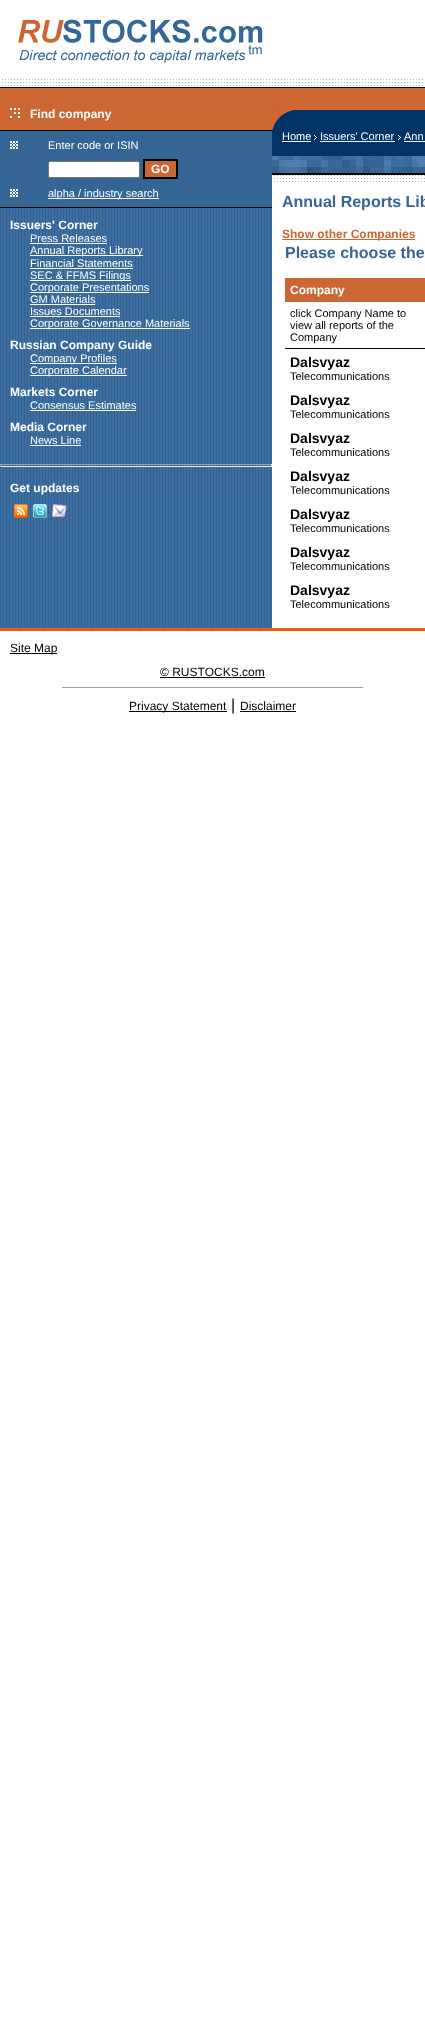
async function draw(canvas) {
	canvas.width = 425;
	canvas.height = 2028;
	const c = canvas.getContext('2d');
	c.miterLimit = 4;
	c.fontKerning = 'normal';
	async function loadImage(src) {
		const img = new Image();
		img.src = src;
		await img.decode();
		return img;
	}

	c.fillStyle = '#fff';
	c.fillRect(0, 0, 425, 2028);
	c.drawImage(await loadImage('img1.png'), 18, 19, 245, 44);
	c.drawImage(await loadImage('img2.png'), 2, 79, 421, 7);
	for (const [x, y, w, h, color] of [
		[0, 87, 425, 1, '#000'],
		[272, 88, 153, 22, '#c63'],
		[0, 88, 272, 42, '#c63'],
	]) {
		c.fillStyle = color;
		c.fillRect(x, y, w, h);
	}
	c.drawImage(await loadImage('img3.png'), 10, 108, 10, 10);
	c.font = 'bold 12px Liberation Sans';
	c.fillStyle = '#fff';
	c.fillText('Find company', 30, 118);
	c.fillStyle = '#036';
	c.fillRect(295, 110, 130, 20);
	c.drawImage(await loadImage('img4.png'), 272, 110, 23, 20);
	c.drawImage(await loadImage('img5.png'), 0, 564, 272, 64);
	c.fillStyle = '#356595';
	c.fillRect(0, 131, 272, 76);
	c.fillStyle = '#000';
	c.fillRect(0, 130, 272, 1);
	c.drawImage(await loadImage('img6.png'), 10, 141, 8, 8);
	c.font = '11px Liberation Sans';
	c.fillStyle = '#fff';
	c.fillText('Enter code or ISIN', 48, 149);
	c.beginPath();
	c.roundRect(48.5, 161.5, 91, 16, 1.5);
	c.fill();
	c.strokeStyle = '#767676';
	c.stroke();
	c.fillStyle = '#c63';
	c.beginPath();
	c.rect(144, 160, 33, 18);
	c.fill();
	c.strokeStyle = '#000';
	c.lineWidth = 2;
	c.stroke();
	c.font = 'bold 12px Liberation Sans';
	c.fillStyle = '#fff';
	c.fillText('GO', 151, 173);
	c.drawImage(await loadImage('img6.png'), 10, 189, 8, 8);
	c.fillRect(48, 198, 111, 1);
	c.font = '11px Liberation Sans';
	c.fillText('alpha / industry search', 48, 197);
	c.fillStyle = '#000';
	c.fillRect(0, 207, 272, 1);
	c.drawImage(await loadImage('img7.png'), 0, 208, 272, 356);
	c.font = 'bold 12px Liberation Sans';
	c.fillStyle = '#fff';
	c.fillText('Issuers\' Corner', 10, 229);
	c.font = '11px Liberation Sans';
	c.fillText('Press Releases', 30, 242);
	c.fillRect(30, 243, 77, 1);
	c.fillRect(30, 255, 113, 1);
	c.fillText('Annual Reports Library', 30, 254);
	c.fillText('Financial Statements', 30, 267);
	c.fillRect(30, 268, 103, 1);
	c.fillRect(30, 280, 101, 1);
	c.fillText('SEC & FFMS Filings', 30, 279);
	c.fillRect(30, 292, 119, 1);
	c.fillText('Corporate Presentations', 30, 291);
	c.fillText('GM Materials', 30, 303);
	c.fillRect(30, 304, 65, 1);
	c.fillText('Issues Documents', 30, 315);
	c.fillRect(30, 316, 90, 1);
	c.fillRect(30, 328, 160, 1);
	c.fillText('Corporate Governance Materials', 30, 327);
	c.font = 'bold 12px Liberation Sans';
	c.fillText('Russian Company Guide', 10, 349);
	c.fillRect(30, 363, 87, 1);
	c.font = '11px Liberation Sans';
	c.fillText('Company Profiles', 30, 362);
	c.fillRect(30, 375, 97, 1);
	c.fillText('Corporate Calendar', 30, 374);
	c.font = 'bold 12px Liberation Sans';
	c.fillText('Markets Corner', 10, 396);
	c.font = '11px Liberation Sans';
	c.fillText('Consensus Estimates', 30, 409);
	c.fillRect(30, 410, 106, 1);
	c.font = 'bold 12px Liberation Sans';
	c.fillText('Media Corner', 10, 431);
	c.font = '11px Liberation Sans';
	c.fillText('News Line', 30, 444);
	for (const [x, y, w, h, color] of [
		[30, 445, 51, 1, '#fff'],
		[0, 464, 272, 1, '#9f9f9f'],
		[271, 464, 1, 3, '#eee'],
		[0, 466, 272, 1, '#eee'],
		[0, 464, 1, 3, '#9f9f9f'],
	]) {
		c.fillStyle = color;
		c.fillRect(x, y, w, h);
	}
	c.font = 'bold 12px Liberation Sans';
	c.fillStyle = '#fff';
	c.fillText('Get updates', 10, 492);
	c.drawImage(await loadImage('img8.png'), 14, 504, 14, 14);
	c.drawImage(await loadImage('img9.png'), 33, 504, 14, 14);
	c.drawImage(await loadImage('img10.png'), 52, 504, 15, 14);
	c.fillStyle = '#036';
	c.fillRect(272, 130, 153, 26);
	c.font = '11px Liberation Sans';
	c.fillStyle = '#fff';
	c.fillText('Home', 282, 140);
	c.fillRect(282, 141, 29, 1);
	c.drawImage(await loadImage('img11.png'), 314, 135, 3, 5);
	c.fillText('Issuers\' Corner', 320, 140);
	c.fillRect(320, 141, 75, 1);
	c.drawImage(await loadImage('img11.png'), 398, 135, 3, 5);
	c.fillText('Ann', 404, 140);
	c.fillRect(404, 141, 21, 1);
	c.drawImage(await loadImage('img12.png'), 272, 156, 153, 17);
	c.fillStyle = '#000';
	c.fillRect(272, 173, 153, 2);
	c.drawImage(await loadImage('img13.png'), 274, 175, 151, 7);
	c.font = 'bold 16px Liberation Sans';
	c.fillStyle = '#356595';
	c.fillText('Annual Reports Lib', 282, 207);
	c.fillStyle = '#c63';
	c.fillRect(282, 239, 133, 1);
	c.font = 'bold 12px Liberation Sans';
	c.fillText('Show other Companies', 282, 238);
	c.font = 'bold 16px Liberation Sans';
	c.fillStyle = '#356595';
	c.fillText('Please choose the', 285, 258);
	c.fillStyle = '#c63';
	c.fillRect(285, 278, 140, 24);
	c.font = 'bold 12px Liberation Sans';
	c.fillStyle = '#fff';
	c.fillText('Company', 290, 294);
	c.fillStyle = '#000';
	c.fillRect(285, 348, 140, 1);
	c.font = '11px Liberation Sans';
	for (const [text, x, y] of [
		['click Company Name to', 290, 317],
		['view all reports of the', 290, 329],
		['Company', 290, 341],
	]) {
		c.fillText(text, x, y);
	}
	c.font = 'bold 14px Liberation Sans';
	c.fillText('Dalsvyaz', 290, 367);
	c.font = '11px Liberation Sans';
	c.fillText('Telecommunications', 290, 380);
	c.font = 'bold 14px Liberation Sans';
	c.fillText('Dalsvyaz', 290, 405);
	c.font = '11px Liberation Sans';
	c.fillText('Telecommunications', 290, 418);
	c.font = 'bold 14px Liberation Sans';
	c.fillText('Dalsvyaz', 290, 443);
	c.font = '11px Liberation Sans';
	c.fillText('Telecommunications', 290, 456);
	c.font = 'bold 14px Liberation Sans';
	c.fillText('Dalsvyaz', 290, 481);
	c.font = '11px Liberation Sans';
	c.fillText('Telecommunications', 290, 494);
	c.font = 'bold 14px Liberation Sans';
	c.fillText('Dalsvyaz', 290, 519);
	c.font = '11px Liberation Sans';
	c.fillText('Telecommunications', 290, 532);
	c.font = 'bold 14px Liberation Sans';
	c.fillText('Dalsvyaz', 290, 557);
	c.font = '11px Liberation Sans';
	c.fillText('Telecommunications', 290, 570);
	c.font = 'bold 14px Liberation Sans';
	c.fillText('Dalsvyaz', 290, 595);
	c.font = '11px Liberation Sans';
	c.fillText('Telecommunications', 290, 608);
	c.fillStyle = '#e25d1a';
	c.fillRect(0, 628, 425, 3);
	c.fillStyle = '#000';
	c.fillRect(10, 653, 47, 1);
	c.font = '12px Liberation Sans';
	c.fillText('Site Map', 10, 652);
	c.fillText('© RUSTOCKS.com', 160, 676);
	for (const [x, y, w, h, color] of [
		[160, 677, 105, 1, '#000'],
		[62, 687, 302, 1, '#9f9f9f'],
		[363, 687, 1, 1, '#eee'],
		[129, 711, 98, 1, '#000'],
	]) {
		c.fillStyle = color;
		c.fillRect(x, y, w, h);
	}
	c.fillText('Privacy Statement', 129, 710);
	c.font = '16px Liberation Sans';
	c.fillText('|', 231, 710);
	c.font = '12px Liberation Sans';
	c.fillText('Disclaimer', 240, 710);
	c.fillRect(240, 711, 56, 1);
}

draw(document.querySelector('canvas'));
